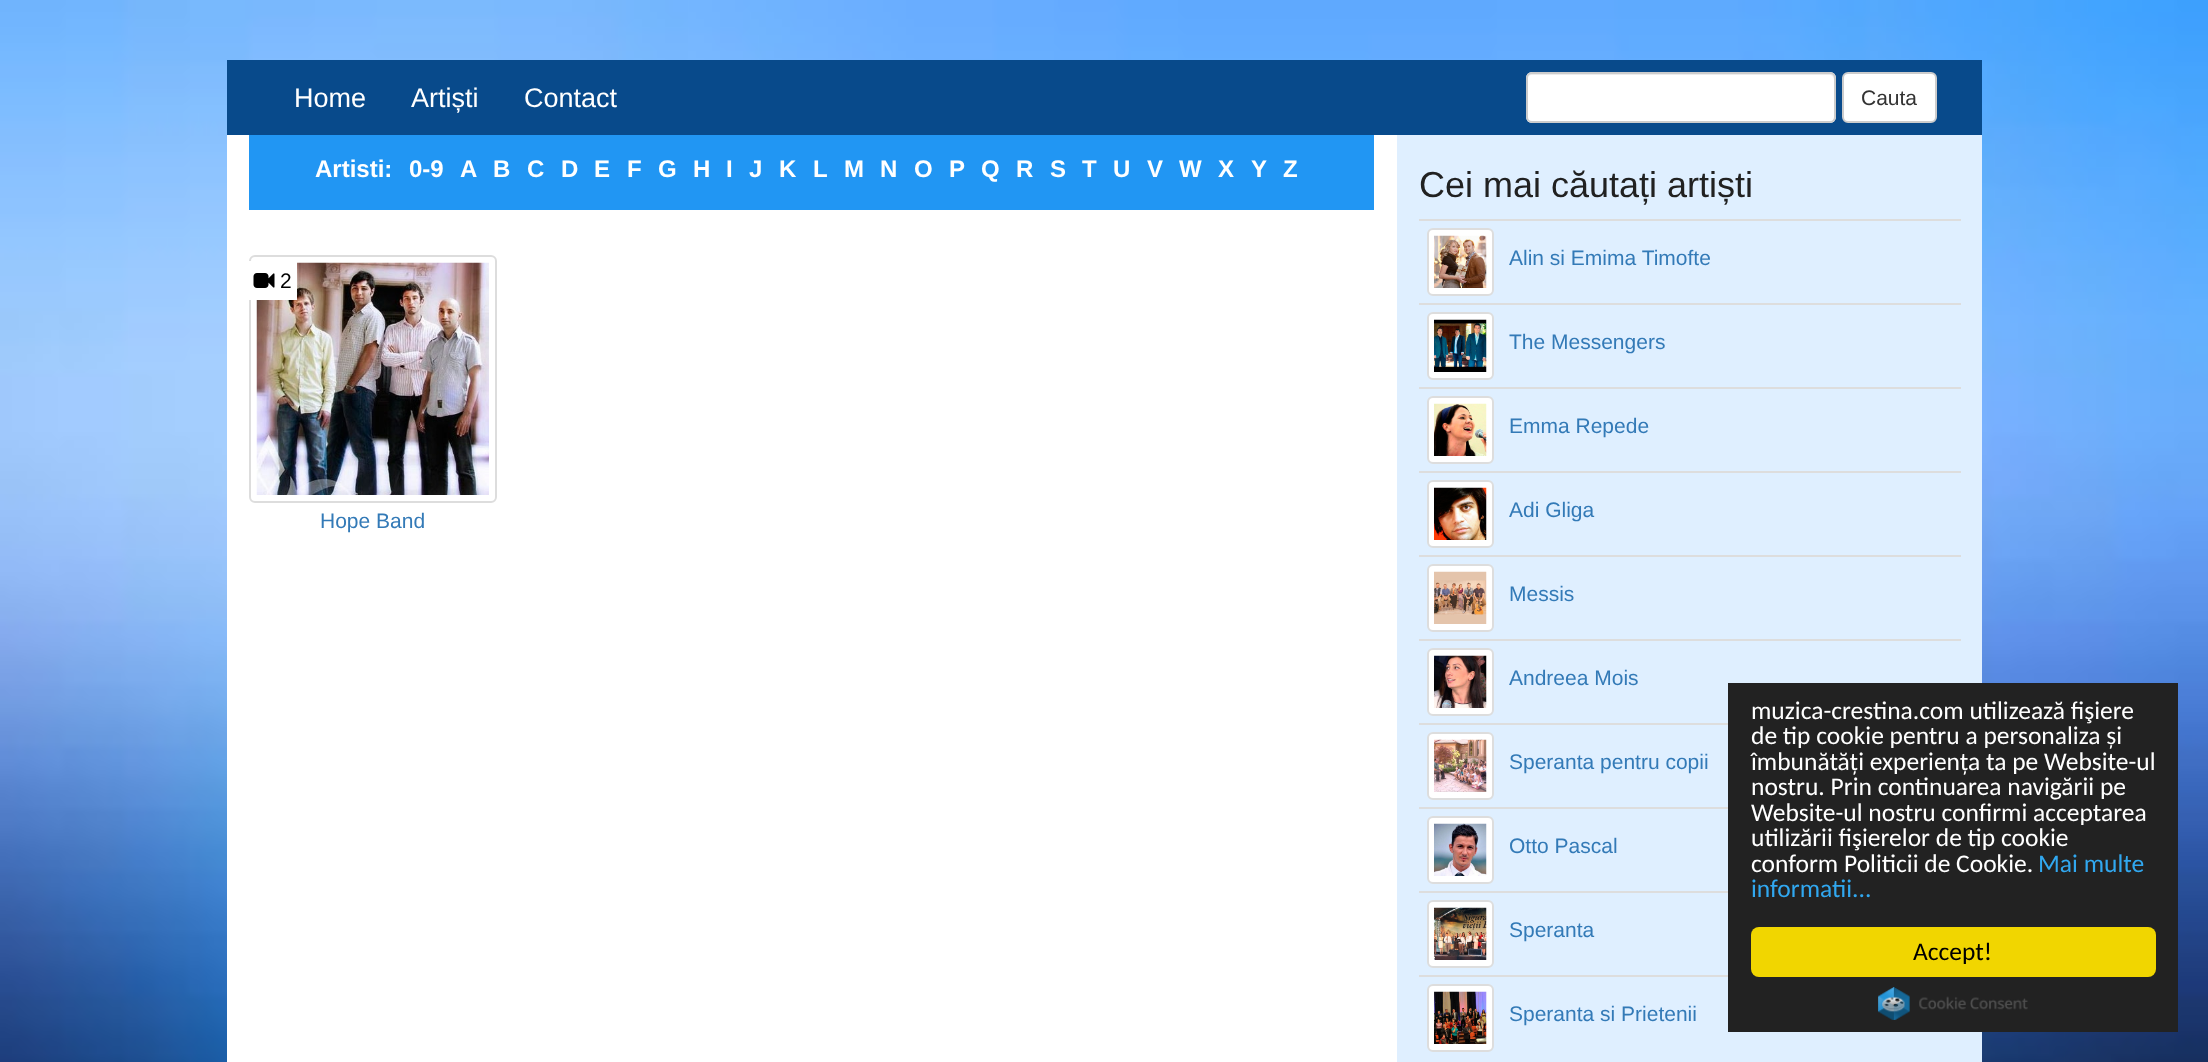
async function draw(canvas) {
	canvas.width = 2208;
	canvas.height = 1062;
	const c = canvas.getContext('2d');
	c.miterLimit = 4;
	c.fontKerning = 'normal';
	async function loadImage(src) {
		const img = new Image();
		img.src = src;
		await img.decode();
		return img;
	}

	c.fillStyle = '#fff';
	c.fillRect(0, 0, 2208, 1062);
	c.drawImage(await loadImage('img1.png'), 0, 0, 2208, 1062);
	c.fillRect(227, 135, 1170, 927);
	c.fillStyle = '#084a8b';
	c.fillRect(227, 60, 1755, 75);
	c.font = '27px Liberation Sans';
	c.fillStyle = '#fff';
	for (const [text, x, y] of [
		['Home', 294, 107],
		['Artiști', 411, 107],
		['Contact', 524, 107],
	]) {
		c.fillText(text, x, y);
	}
	c.beginPath();
	c.roundRect(1526, 72, 310, 51, 6);
	c.fill();
	c.fillStyle = '#ececec';
	c.beginPath();
	c.moveTo(1532, 75);
	c.lineTo(1830, 75);
	c.bezierCurveTo(1832, 75, 1834, 77, 1834, 80);
	c.lineTo(1834, 118);
	c.lineTo(1833, 121);
	c.bezierCurveTo(1834, 120, 1835, 118, 1835, 117);
	c.lineTo(1835, 79);
	c.bezierCurveTo(1835, 76, 1833, 74, 1830, 74);
	c.lineTo(1532, 74);
	c.bezierCurveTo(1529, 74, 1527, 76, 1527, 79);
	c.lineTo(1527, 80);
	c.bezierCurveTo(1527, 77, 1529, 75, 1532, 75);
	c.closePath();
	c.fill();
	c.beginPath();
	c.roundRect(1527, 73, 308, 49, 5);
	c.strokeStyle = '#ccc';
	c.lineWidth = 2;
	c.stroke();
	c.fillStyle = '#fff';
	c.beginPath();
	c.roundRect(1843, 73, 93, 49, 5);
	c.fill();
	c.stroke();
	c.font = '21px Liberation Sans';
	c.fillStyle = '#333';
	c.fillText('Cauta', 1861, 105);
	c.fillStyle = '#2196f3';
	c.fillRect(249, 135, 1125, 75);
	c.font = 'bold 24px Liberation Sans';
	c.fillStyle = '#fff';
	for (const [text, x, y] of [
		['Artisti:', 315, 177],
		['0-9', 409, 177],
		['A', 460, 177],
		['B', 493, 177],
		['C', 527, 177],
		['D', 561, 177],
		['E', 594, 177],
		['F', 627, 177],
		['G', 658, 177],
		['H', 693, 177],
		['I', 726, 177],
		['J', 749, 177],
		['K', 779, 177],
		['L', 813, 177],
		['M', 844, 177],
		['N', 880, 177],
		['O', 914, 177],
		['P', 949, 177],
		['Q', 981, 177],
		['R', 1016, 177],
		['S', 1050, 177],
		['T', 1082, 177],
		['U', 1113, 177],
		['V', 1147, 177],
		['W', 1179, 177],
		['X', 1218, 177],
		['Y', 1251, 177],
		['Z', 1283, 177],
	]) {
		c.fillText(text, x, y);
	}
	c.beginPath();
	c.roundRect(250, 256, 246, 246, 5);
	c.strokeStyle = '#ddd';
	c.stroke();
	c.drawImage(await loadImage('img2.png'), 256, 262, 233, 233);
	c.fillRect(249, 261, 48, 39);
	c.drawImage(await loadImage('img3.png'), 253, 273, 22, 15);
	c.font = '21px Liberation Sans';
	c.fillStyle = '#000';
	c.fillText('2', 280, 288);
	c.fillStyle = '#337ab7';
	c.fillText('Hope Band', 320, 528);
	c.fillStyle = '#dfefff';
	c.fillRect(1397, 135, 585, 927);
	c.font = '36px Liberation Sans';
	c.fillStyle = '#212121';
	c.fillText('Cei mai căutați artiști', 1419, 197);
	c.fillStyle = '#fff';
	c.beginPath();
	c.roundRect(1428, 229, 65, 66, 5);
	c.fill();
	c.stroke();
	c.drawImage(await loadImage('img4.png'), 1434, 235, 53, 53);
	c.fillStyle = '#ddd';
	c.fillRect(1419, 219, 542, 2);
	c.font = '21px Liberation Sans';
	c.fillStyle = '#337ab7';
	c.fillText('Alin si Emima Timofte', 1509, 265);
	c.fillStyle = '#fff';
	c.beginPath();
	c.roundRect(1428, 313, 65, 66, 5);
	c.fill();
	c.stroke();
	c.drawImage(await loadImage('img5.png'), 1434, 319, 53, 53);
	c.fillStyle = '#ddd';
	c.fillRect(1419, 303, 542, 2);
	c.fillStyle = '#337ab7';
	c.fillText('The Messengers', 1509, 349);
	c.fillStyle = '#fff';
	c.beginPath();
	c.roundRect(1428, 397, 65, 66, 5);
	c.fill();
	c.stroke();
	c.drawImage(await loadImage('img6.png'), 1434, 403, 53, 53);
	c.fillStyle = '#ddd';
	c.fillRect(1419, 387, 542, 2);
	c.fillStyle = '#337ab7';
	c.fillText('Emma Repede', 1509, 433);
	c.fillStyle = '#fff';
	c.beginPath();
	c.roundRect(1428, 481, 65, 66, 5);
	c.fill();
	c.stroke();
	c.drawImage(await loadImage('img7.png'), 1434, 487, 53, 53);
	c.fillStyle = '#ddd';
	c.fillRect(1419, 471, 542, 2);
	c.fillStyle = '#337ab7';
	c.fillText('Adi Gliga', 1509, 517);
	c.fillStyle = '#fff';
	c.beginPath();
	c.roundRect(1428, 565, 65, 66, 5);
	c.fill();
	c.stroke();
	c.drawImage(await loadImage('img8.png'), 1434, 571, 53, 53);
	c.fillStyle = '#ddd';
	c.fillRect(1419, 555, 542, 2);
	c.fillStyle = '#337ab7';
	c.fillText('Messis', 1509, 601);
	c.fillStyle = '#fff';
	c.beginPath();
	c.roundRect(1428, 649, 65, 66, 5);
	c.fill();
	c.stroke();
	c.drawImage(await loadImage('img9.png'), 1434, 655, 53, 53);
	c.fillStyle = '#ddd';
	c.fillRect(1419, 639, 542, 2);
	c.fillStyle = '#337ab7';
	c.fillText('Andreea Mois', 1509, 685);
	c.fillStyle = '#fff';
	c.beginPath();
	c.roundRect(1428, 733, 65, 66, 5);
	c.fill();
	c.stroke();
	c.drawImage(await loadImage('img10.png'), 1434, 739, 53, 53);
	c.fillStyle = '#ddd';
	c.fillRect(1419, 723, 309, 2);
	c.fillStyle = '#337ab7';
	c.fillText('Speranta pentru copii', 1509, 769);
	c.fillStyle = '#fff';
	c.beginPath();
	c.roundRect(1428, 817, 65, 66, 5);
	c.fill();
	c.stroke();
	c.drawImage(await loadImage('img11.png'), 1434, 823, 53, 53);
	c.fillStyle = '#ddd';
	c.fillRect(1419, 807, 309, 2);
	c.fillStyle = '#337ab7';
	c.fillText('Otto Pascal', 1509, 853);
	c.fillStyle = '#fff';
	c.beginPath();
	c.roundRect(1428, 901, 65, 66, 5);
	c.fill();
	c.stroke();
	c.drawImage(await loadImage('img12.png'), 1434, 907, 53, 53);
	c.fillStyle = '#ddd';
	c.fillRect(1419, 891, 309, 2);
	c.fillStyle = '#337ab7';
	c.fillText('Speranta', 1509, 937);
	c.fillStyle = '#fff';
	c.beginPath();
	c.roundRect(1428, 985, 65, 66, 5);
	c.fill();
	c.stroke();
	c.drawImage(await loadImage('img13.png'), 1434, 991, 53, 53);
	c.fillStyle = '#ddd';
	c.fillRect(1419, 975, 309, 2);
	c.fillStyle = '#337ab7';
	c.fillText('Speranta si Prietenii', 1509, 1021);
	c.fillStyle = '#222';
	c.fillRect(1728, 683, 450, 349);
	c.font = '25.5px Carlito';
	c.fillStyle = '#fff';
	for (const [text, x, y] of [
		['muzica-crestina.com utilizează fişiere', 1751, 719],
		['de tip cookie pentru a personaliza și', 1751, 744],
		['îmbunătăți experiența ta pe Website-ul', 1751, 770],
		['nostru. Prin continuarea navigării pe', 1751, 795],
		['Website-ul nostru confirmi acceptarea', 1751, 821],
		['utilizării fişierelor de tip cookie', 1751, 846],
		['conform Politicii de Cookie.', 1751, 872],
	]) {
		c.fillText(text, x, y);
	}
	c.fillStyle = '#31a8f0';
	c.fillText('Mai multe', 2038, 872);
	c.fillText('informatii...', 1751, 897);
	c.fillStyle = '#f1d600';
	c.beginPath();
	c.roundRect(1751, 927, 405, 50, 8);
	c.fill();
	c.fillStyle = '#000';
	c.fillText('Accept!', 1913, 960);
	c.drawImage(await loadImage('img14.png'), 1878, 987, 150, 33);
}

draw(document.querySelector('canvas'));
